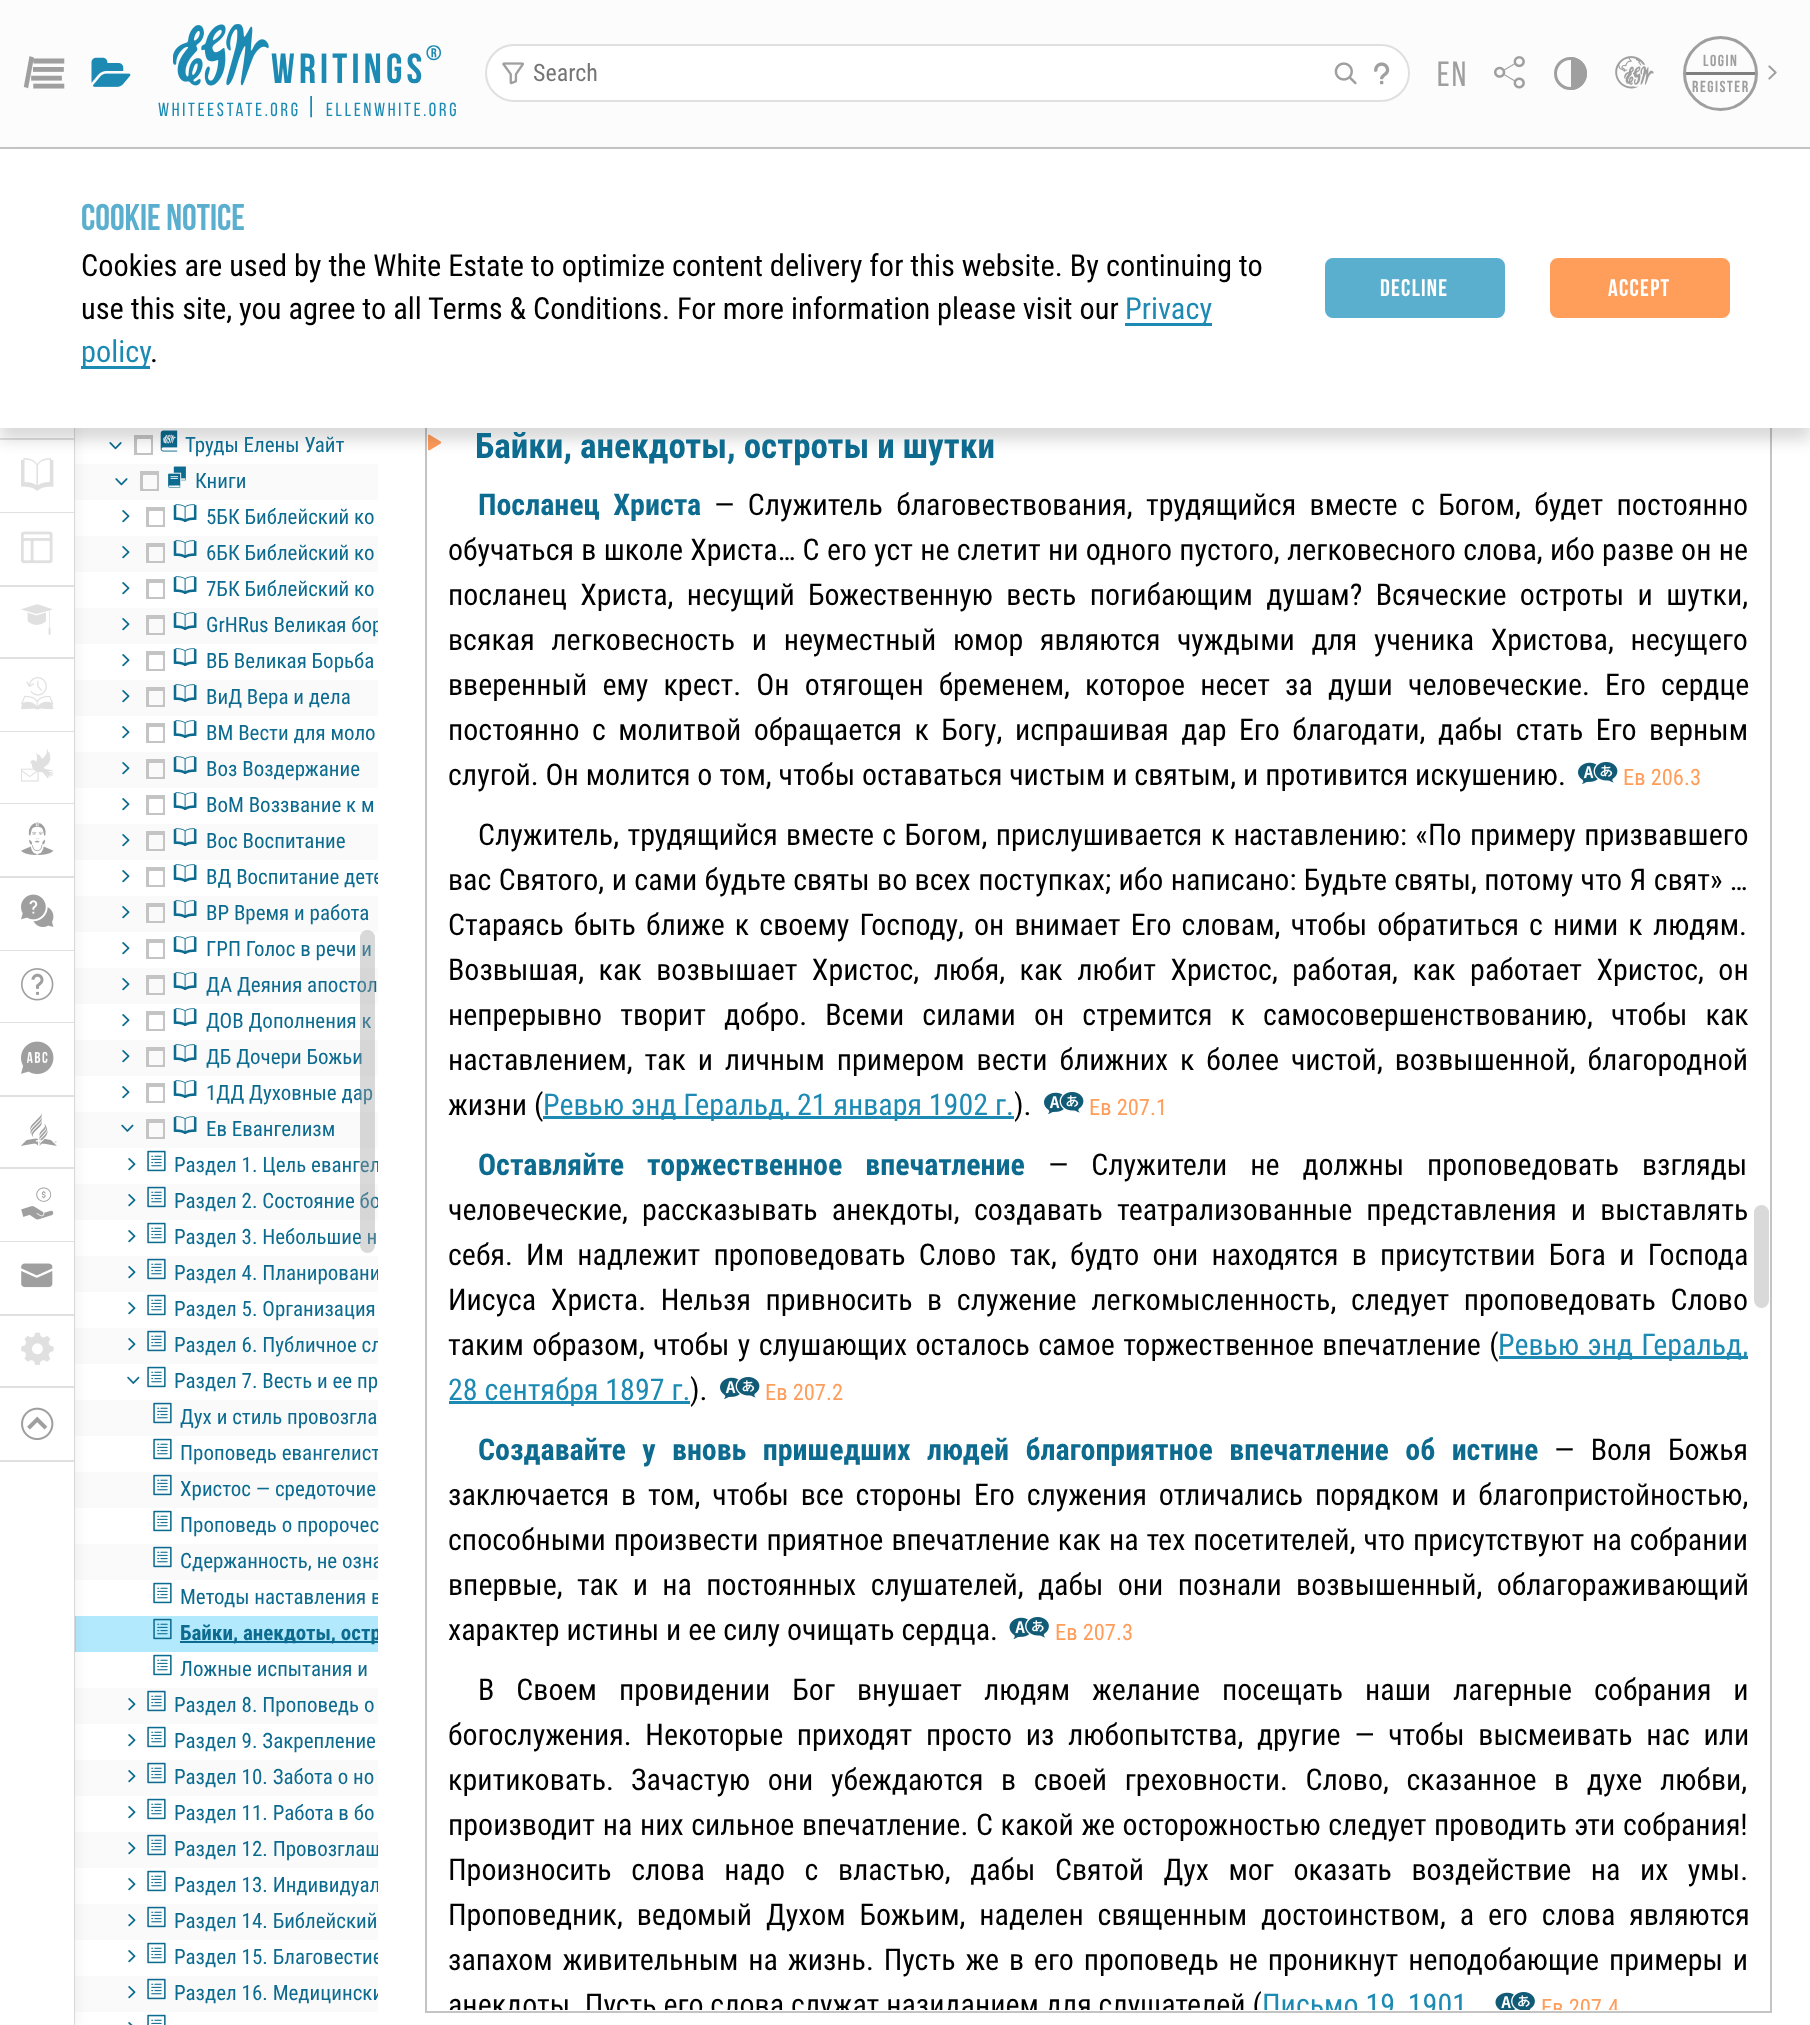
async function draw(canvas) {
	canvas.width = 1810;
	canvas.height = 2025;
	const c = canvas.getContext('2d');
	c.miterLimit = 4;
	c.fontKerning = 'normal';
	async function loadImage(src) {
		const img = new Image();
		img.src = src;
		await img.decode();
		return img;
	}

	c.fillStyle = '#fff';
	c.fillRect(0, 0, 1810, 2025);
	for (const [x, y, w, h, color] of [
		[76, 1616, 302, 36, '#b3e9fd'],
		[74, 428, 1, 1597, '#e0e0e0'],
		[75, 1616, 1, 36, '#a4daee'],
		[75, 464, 303, 36, '#fafafa'],
		[75, 536, 303, 36, '#fafafa'],
		[75, 608, 303, 36, '#fafafa'],
		[75, 680, 303, 36, '#fafafa'],
		[75, 752, 303, 36, '#fafafa'],
		[75, 824, 303, 36, '#fafafa'],
		[75, 896, 303, 36, '#fafafa'],
		[75, 968, 303, 36, '#fafafa'],
		[75, 1040, 303, 36, '#fafafa'],
		[75, 1112, 303, 36, '#fafafa'],
		[75, 1184, 303, 36, '#fafafa'],
		[75, 1256, 303, 36, '#fafafa'],
		[75, 1328, 303, 36, '#fafafa'],
		[75, 1400, 303, 36, '#fafafa'],
		[75, 1472, 303, 36, '#fafafa'],
		[75, 1544, 303, 36, '#fafafa'],
		[75, 1688, 303, 36, '#fafafa'],
		[75, 1760, 303, 36, '#fafafa'],
		[75, 1832, 303, 36, '#fafafa'],
		[75, 1904, 303, 36, '#fafafa'],
		[75, 1976, 303, 36, '#fafafa'],
	]) {
		c.fillStyle = color;
		c.fillRect(x, y, w, h);
	}
	c.fillStyle = '#00000014';
	c.filter = 'blur(7.5px)';
	c.beginPath();
	c.rect(0, 152, 74, 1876);
	c.fill();
	c.filter = 'none';
	c.fillStyle = '#fcfcfc';
	c.fillRect(0, 0, 1810, 147);
	c.fillStyle = '#c4c4c4';
	c.fillRect(0, 147, 1810, 2);
	c.drawImage(await loadImage('img1.png'), 23, 56, 42, 33);
	c.drawImage(await loadImage('img2.png'), 91, 57, 40, 30);
	c.drawImage(await loadImage('img3.png'), 173, 24, 96, 62);
	c.letterSpacing = '4.25px';
	c.font = 'bold 42px Bebas Neue';
	c.fillStyle = '#1c8ab3';
	c.fillText('writings', 271, 83);
	c.letterSpacing = '2px';
	c.font = 'bold 21px Bebas Neue';
	c.fillText('®', 426, 60);
	c.letterSpacing = '2.75px';
	c.font = '19px Bebas Neue';
	c.fillText('whiteestate.org', 158, 116);
	c.font = '27px Bebas Neue';
	c.fillText('|', 306, 116);
	c.font = '19px Bebas Neue';
	c.fillText('ellenwhite.org', 326, 116);
	c.fillStyle = '#fff';
	c.beginPath();
	c.roundRect(486, 45, 923, 56, 28);
	c.fill();
	c.strokeStyle = '#e0e0e0';
	c.lineWidth = 2;
	c.stroke();
	c.drawImage(await loadImage('img4.png'), 502, 62, 22, 23);
	c.letterSpacing = '0px';
	c.font = '24px Roboto Condensed';
	c.fillStyle = '#757575';
	c.fillText('Search', 533, 81);
	c.drawImage(await loadImage('img5.png'), 1334, 62, 23, 23);
	c.drawImage(await loadImage('img6.png'), 1374, 62, 16, 23);
	c.letterSpacing = '2px';
	c.font = '35.1px Bebas Neue';
	c.fillStyle = '#9f9f9f';
	c.fillText('en', 1437, 86);
	c.drawImage(await loadImage('img7.png'), 1494, 56, 31, 33);
	c.beginPath();
	c.arc(1570.5, 73.5, 15, 0, 2 * Math.PI);
	c.strokeStyle = '#9f9f9f';
	c.lineWidth = 3;
	c.stroke();
	c.save();
	c.beginPath();
	c.roundRect(1554, 57, 33, 33, 16.5);
	c.clip();
	c.fillRect(1571, 57, 16, 33);
	c.restore();
	c.drawImage(await loadImage('img8.png'), 1615, 56, 39, 33);
	c.fillStyle = '#808080';
	c.fillRect(1686, 72, 69, 3);
	c.beginPath();
	c.arc(1720.5, 73.5, 36, 0, 2 * Math.PI);
	c.stroke();
	c.letterSpacing = '1.5px';
	c.font = 'bold 16px Bebas Neue';
	c.fillStyle = '#9f9f9f';
	c.fillText('logIn', 1703, 66);
	c.fillText('Register', 1692, 92);
	c.drawImage(await loadImage('img9.png'), 1768, 65, 9, 15);
	c.fillStyle = '#fff';
	c.fillRect(0, 428, 74, 1597);
	c.fillStyle = '#e0e0e0';
	c.fillRect(0, 438, 74, 2);
	c.drawImage(await loadImage('img10.png'), 21, 458, 33, 33);
	c.drawImage(await loadImage('img24.png'), 109, 442, 13, 8);
	c.strokeStyle = '#c4c4c4';
	c.lineWidth = 2;
	c.strokeRect(136, 438, 16, 16);
	c.strokeRect(135, 436, 17, 18);
	c.beginPath();
	c.roundRect(136, 438, 16, 16, 2);
	c.stroke();
	c.drawImage(await loadImage('img25.png'), 160, 430, 18, 22);
	c.drawImage(await loadImage('img39.png'), 428, 434, 14, 17);
	c.drawImage(await loadImage('img40.png'), 1578, 762, 40, 22);
	c.fillStyle = '#1c8ab3';
	c.fillRect(543, 1116, 471, 3);
	c.drawImage(await loadImage('img40.png'), 1044, 1092, 40, 22);
	c.fillRect(1499, 1356, 249, 3);
	c.fillRect(449, 1401, 241, 3);
	c.drawImage(await loadImage('img40.png'), 720, 1377, 40, 22);
	c.drawImage(await loadImage('img41.png'), 1009, 1617, 40, 22);
	c.drawImage(await loadImage('img42.png'), 1495, 1992, 40, 18);
	c.fillStyle = '#d9d9d9';
	c.beginPath();
	c.roundRect(1754, 1205, 15, 103, 7.5);
	c.fill();
	c.strokeRect(426, 270, 1345, 1742);
	c.fillStyle = '#00000026';
	c.filter = 'blur(7.5px)';
	c.beginPath();
	c.rect(0, 161, 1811, 279);
	c.fill();
	c.filter = 'none';
	c.fillStyle = '#fff';
	c.fillRect(0, 149, 1810, 279);
	c.letterSpacing = '0px';
	c.font = 'bold 37px Bebas Neue';
	c.fillStyle = '#5aaece';
	c.fillText('Cookie Notice', 81, 230);
	c.font = '30.4px Roboto Condensed';
	c.fillStyle = '#000';
	c.fillText('Cookies are used by the White Estate to optimize content delivery for this website. By continuing to', 81, 276);
	c.fillText('use this site, you agree to all Terms & Conditions. For more information please visit our', 81, 319);
	c.fillStyle = '#1c8ab3';
	c.fillRect(1125, 323, 87, 3);
	c.fillText('Privacy', 1125, 319);
	c.fillRect(81, 366, 69, 3);
	c.fillText('policy', 81, 362);
	c.fillStyle = '#000';
	c.fillText('.', 150, 362);
	c.fillStyle = '#5aaece';
	c.beginPath();
	c.roundRect(1326, 259, 178, 58, 7);
	c.fill();
	c.strokeStyle = '#5aaece';
	c.stroke();
	c.letterSpacing = '1.25px';
	c.font = 'bold 24px Bebas Neue';
	c.fillStyle = '#fff';
	c.fillText('Decline', 1380, 296);
	c.fillStyle = '#ff9d5b';
	c.beginPath();
	c.roundRect(1551, 259, 178, 58, 7);
	c.fill();
	c.strokeStyle = '#ff9d5b';
	c.stroke();
	c.fillStyle = '#fff';
	c.fillText('Accept', 1608, 296);
	c.fillStyle = '#e0e0e0';
	c.fillRect(0, 512, 74, 1);
	c.fillRect(0, 585, 74, 2);
	c.drawImage(await loadImage('img11.png'), 21, 531, 32, 33);
	c.fillRect(0, 657, 74, 2);
	c.drawImage(await loadImage('img12.png'), 21, 604, 32, 31);
	c.fillRect(0, 731, 74, 1);
	c.drawImage(await loadImage('img13.png'), 21, 677, 33, 33);
	c.fillRect(0, 803, 74, 1);
	c.drawImage(await loadImage('img14.png'), 21, 749, 33, 33);
	c.fillRect(0, 876, 74, 2);
	c.drawImage(await loadImage('img15.png'), 21, 822, 33, 33);
	c.fillRect(0, 950, 74, 1);
	c.drawImage(await loadImage('img16.png'), 21, 894, 33, 33);
	c.fillRect(0, 1022, 74, 1);
	c.drawImage(await loadImage('img17.png'), 21, 968, 33, 33);
	c.fillRect(0, 1095, 74, 2);
	c.drawImage(await loadImage('img18.png'), 21, 1041, 33, 33);
	c.fillRect(0, 1167, 74, 2);
	c.drawImage(await loadImage('img19.png'), 21, 1113, 36, 33);
	c.fillRect(0, 1241, 74, 1);
	c.drawImage(await loadImage('img20.png'), 21, 1187, 33, 33);
	c.fillRect(0, 1314, 74, 2);
	c.drawImage(await loadImage('img21.png'), 21, 1263, 32, 25);
	c.fillRect(0, 1386, 74, 2);
	c.drawImage(await loadImage('img22.png'), 21, 1332, 33, 33);
	c.fillRect(0, 1460, 74, 2);
	c.drawImage(await loadImage('img23.png'), 21, 1407, 33, 33);
	c.letterSpacing = '0px';
	c.font = '21px Roboto Condensed';
	c.fillStyle = '#0c6b8f';
	c.fillText('Труды Елены Уайт', 185, 452);
	c.drawImage(await loadImage('img26.png'), 115, 478, 13, 8);
	c.strokeStyle = '#c4c4c4';
	c.strokeRect(142, 474, 16, 16);
	c.strokeRect(141, 472, 17, 18);
	c.beginPath();
	c.roundRect(142, 474, 16, 16, 2);
	c.stroke();
	c.drawImage(await loadImage('img27.png'), 168, 466, 18, 22);
	c.fillText('Книги', 195, 488);
	c.drawImage(await loadImage('img28.png'), 122, 510, 8, 13);
	c.strokeRect(148, 510, 16, 16);
	c.strokeRect(147, 508, 17, 18);
	c.beginPath();
	c.roundRect(148, 510, 16, 16, 2);
	c.stroke();
	c.drawImage(await loadImage('img29.png'), 173, 504, 24, 18);
	c.fillText('5БК Библейский ко', 206, 524);
	c.drawImage(await loadImage('img30.png'), 122, 546, 8, 13);
	c.strokeRect(148, 546, 16, 16);
	c.strokeRect(147, 544, 17, 18);
	c.beginPath();
	c.roundRect(148, 546, 16, 16, 2);
	c.stroke();
	c.drawImage(await loadImage('img31.png'), 173, 540, 24, 18);
	c.fillText('6БК Библейский ко', 206, 560);
	c.drawImage(await loadImage('img28.png'), 122, 582, 8, 13);
	c.strokeRect(148, 582, 16, 16);
	c.strokeRect(147, 580, 17, 18);
	c.beginPath();
	c.roundRect(148, 582, 16, 16, 2);
	c.stroke();
	c.drawImage(await loadImage('img29.png'), 173, 576, 24, 18);
	c.fillText('7БК Библейский ко', 206, 596);
	c.drawImage(await loadImage('img30.png'), 122, 618, 8, 13);
	c.strokeRect(148, 618, 16, 16);
	c.strokeRect(147, 616, 17, 18);
	c.beginPath();
	c.roundRect(148, 618, 16, 16, 2);
	c.stroke();
	c.drawImage(await loadImage('img31.png'), 173, 612, 24, 18);
	c.save();
	c.beginPath();
	c.rect(75, 608, 303, 36);
	c.clip();
	c.fillText('GrHRus Великая бор', 206, 632);
	c.restore();
	c.drawImage(await loadImage('img28.png'), 122, 654, 8, 13);
	c.strokeRect(148, 654, 16, 16);
	c.strokeRect(147, 652, 17, 18);
	c.beginPath();
	c.roundRect(148, 654, 16, 16, 2);
	c.stroke();
	c.drawImage(await loadImage('img29.png'), 173, 648, 24, 18);
	c.fillText('ВБ Великая Борьба', 206, 668);
	c.drawImage(await loadImage('img30.png'), 122, 690, 8, 13);
	c.strokeRect(148, 690, 16, 16);
	c.strokeRect(147, 688, 17, 18);
	c.beginPath();
	c.roundRect(148, 690, 16, 16, 2);
	c.stroke();
	c.drawImage(await loadImage('img31.png'), 173, 684, 24, 18);
	c.fillText('ВиД Вера и дела', 206, 704);
	c.drawImage(await loadImage('img28.png'), 122, 726, 8, 13);
	c.strokeRect(148, 726, 16, 16);
	c.strokeRect(147, 724, 17, 18);
	c.beginPath();
	c.roundRect(148, 726, 16, 16, 2);
	c.stroke();
	c.drawImage(await loadImage('img29.png'), 173, 720, 24, 18);
	c.fillText('ВМ Вести для моло', 206, 740);
	c.drawImage(await loadImage('img30.png'), 122, 762, 8, 13);
	c.strokeRect(148, 762, 16, 16);
	c.strokeRect(147, 760, 17, 18);
	c.beginPath();
	c.roundRect(148, 762, 16, 16, 2);
	c.stroke();
	c.drawImage(await loadImage('img31.png'), 173, 756, 24, 18);
	c.fillText('Воз Воздержание', 206, 776);
	c.drawImage(await loadImage('img28.png'), 122, 798, 8, 13);
	c.strokeRect(148, 798, 16, 16);
	c.strokeRect(147, 796, 17, 18);
	c.beginPath();
	c.roundRect(148, 798, 16, 16, 2);
	c.stroke();
	c.drawImage(await loadImage('img29.png'), 173, 792, 24, 18);
	c.fillText('ВоМ Воззвание к м', 206, 812);
	c.drawImage(await loadImage('img30.png'), 122, 834, 8, 13);
	c.strokeRect(148, 834, 16, 16);
	c.strokeRect(147, 832, 17, 18);
	c.beginPath();
	c.roundRect(148, 834, 16, 16, 2);
	c.stroke();
	c.drawImage(await loadImage('img31.png'), 173, 828, 24, 18);
	c.fillText('Вос Воспитание', 206, 848);
	c.drawImage(await loadImage('img28.png'), 122, 870, 8, 13);
	c.strokeRect(148, 870, 16, 16);
	c.strokeRect(147, 868, 17, 18);
	c.beginPath();
	c.roundRect(148, 870, 16, 16, 2);
	c.stroke();
	c.drawImage(await loadImage('img29.png'), 173, 864, 24, 18);
	c.save();
	c.beginPath();
	c.rect(75, 860, 303, 36);
	c.clip();
	c.fillText('ВД Воспитание дете', 206, 884);
	c.restore();
	c.drawImage(await loadImage('img30.png'), 122, 906, 8, 13);
	c.strokeRect(148, 906, 16, 16);
	c.strokeRect(147, 904, 17, 18);
	c.beginPath();
	c.roundRect(148, 906, 16, 16, 2);
	c.stroke();
	c.drawImage(await loadImage('img31.png'), 173, 900, 24, 18);
	c.fillText('ВР Время и работа', 206, 920);
	c.drawImage(await loadImage('img28.png'), 122, 942, 8, 13);
	c.strokeRect(148, 942, 16, 16);
	c.strokeRect(147, 940, 17, 18);
	c.beginPath();
	c.roundRect(148, 942, 16, 16, 2);
	c.stroke();
	c.drawImage(await loadImage('img29.png'), 173, 936, 24, 18);
	c.fillText('ГРП Голос в речи и', 206, 956);
	c.drawImage(await loadImage('img30.png'), 122, 978, 8, 13);
	c.strokeRect(148, 978, 16, 16);
	c.strokeRect(147, 976, 17, 18);
	c.beginPath();
	c.roundRect(148, 978, 16, 16, 2);
	c.stroke();
	c.drawImage(await loadImage('img31.png'), 173, 972, 24, 18);
	c.fillText('ДА Деяния апостол', 206, 992);
	c.drawImage(await loadImage('img28.png'), 122, 1014, 8, 13);
	c.strokeRect(148, 1014, 16, 16);
	c.strokeRect(147, 1012, 17, 18);
	c.beginPath();
	c.roundRect(148, 1014, 16, 16, 2);
	c.stroke();
	c.drawImage(await loadImage('img29.png'), 173, 1008, 24, 18);
	c.fillText('ДОВ Дополнения к', 206, 1028);
	c.drawImage(await loadImage('img30.png'), 122, 1050, 8, 13);
	c.strokeRect(148, 1050, 16, 16);
	c.strokeRect(147, 1048, 17, 18);
	c.beginPath();
	c.roundRect(148, 1050, 16, 16, 2);
	c.stroke();
	c.drawImage(await loadImage('img31.png'), 173, 1044, 24, 18);
	c.fillText('ДБ Дочери Божьи', 206, 1064);
	c.drawImage(await loadImage('img28.png'), 122, 1086, 8, 13);
	c.strokeRect(148, 1086, 16, 16);
	c.strokeRect(147, 1084, 17, 18);
	c.beginPath();
	c.roundRect(148, 1086, 16, 16, 2);
	c.stroke();
	c.drawImage(await loadImage('img29.png'), 173, 1080, 24, 18);
	c.fillText('1ДД Духовные дар', 206, 1100);
	c.drawImage(await loadImage('img32.png'), 121, 1124, 13, 8);
	c.strokeRect(148, 1122, 16, 16);
	c.strokeRect(147, 1120, 17, 18);
	c.beginPath();
	c.roundRect(148, 1122, 16, 16, 2);
	c.stroke();
	c.drawImage(await loadImage('img31.png'), 173, 1116, 24, 18);
	c.fillText('Ев Евангелизм', 206, 1136);
	c.drawImage(await loadImage('img28.png'), 128, 1158, 8, 13);
	c.drawImage(await loadImage('img33.png'), 147, 1150, 19, 22);
	c.save();
	c.beginPath();
	c.rect(75, 1148, 303, 36);
	c.clip();
	c.fillText('Раздел 1. Цель евангел', 174, 1172);
	c.restore();
	c.drawImage(await loadImage('img30.png'), 128, 1194, 8, 13);
	c.drawImage(await loadImage('img34.png'), 147, 1186, 19, 22);
	c.save();
	c.beginPath();
	c.rect(75, 1184, 303, 36);
	c.clip();
	c.fillText('Раздел 2. Состояние бо', 174, 1208);
	c.restore();
	c.drawImage(await loadImage('img28.png'), 128, 1230, 8, 13);
	c.drawImage(await loadImage('img33.png'), 147, 1222, 19, 22);
	c.fillText('Раздел 3. Небольшие н', 174, 1244);
	c.drawImage(await loadImage('img30.png'), 128, 1266, 8, 13);
	c.drawImage(await loadImage('img34.png'), 147, 1258, 19, 22);
	c.save();
	c.beginPath();
	c.rect(75, 1256, 303, 36);
	c.clip();
	c.fillText('Раздел 4. Планировани', 174, 1280);
	c.restore();
	c.drawImage(await loadImage('img28.png'), 128, 1302, 8, 13);
	c.drawImage(await loadImage('img33.png'), 147, 1294, 19, 22);
	c.fillText('Раздел 5. Организация', 174, 1316);
	c.drawImage(await loadImage('img30.png'), 128, 1338, 8, 13);
	c.drawImage(await loadImage('img34.png'), 147, 1330, 19, 22);
	c.save();
	c.beginPath();
	c.rect(75, 1328, 303, 36);
	c.clip();
	c.fillText('Раздел 6. Публичное сл', 174, 1352);
	c.restore();
	c.drawImage(await loadImage('img35.png'), 127, 1376, 13, 8);
	c.drawImage(await loadImage('img33.png'), 147, 1366, 19, 22);
	c.fillText('Раздел 7. Весть и ее пр', 174, 1388);
	c.drawImage(await loadImage('img34.png'), 153, 1402, 19, 22);
	c.fillText('Дух и стиль провозгла', 180, 1424);
	c.drawImage(await loadImage('img33.png'), 153, 1438, 19, 22);
	c.save();
	c.beginPath();
	c.rect(75, 1436, 303, 36);
	c.clip();
	c.fillText('Проповедь евангелист', 180, 1460);
	c.restore();
	c.drawImage(await loadImage('img34.png'), 153, 1474, 19, 22);
	c.fillText('Христос — средоточие', 180, 1496);
	c.drawImage(await loadImage('img33.png'), 153, 1510, 19, 22);
	c.fillText('Проповедь о пророчес', 180, 1532);
	c.drawImage(await loadImage('img34.png'), 153, 1546, 19, 22);
	c.save();
	c.beginPath();
	c.rect(75, 1544, 303, 36);
	c.clip();
	c.fillText('Сдержанность, не озна', 180, 1568);
	c.restore();
	c.drawImage(await loadImage('img33.png'), 153, 1582, 19, 22);
	c.save();
	c.beginPath();
	c.rect(75, 1580, 303, 36);
	c.clip();
	c.fillText('Методы наставления в', 180, 1604);
	c.restore();
	c.drawImage(await loadImage('img36.png'), 153, 1618, 19, 22);
	c.fillRect(180, 1641, 198, 2);
	c.save();
	c.beginPath();
	c.rect(75, 1616, 303, 36);
	c.clip();
	c.font = 'bold 21px Roboto Condensed';
	c.fillText('Байки, анекдоты, остр', 180, 1640);
	c.restore();
	c.drawImage(await loadImage('img33.png'), 153, 1654, 19, 22);
	c.fillText('Ложные испытания и', 180, 1676);
	c.drawImage(await loadImage('img30.png'), 128, 1698, 8, 13);
	c.drawImage(await loadImage('img34.png'), 147, 1690, 19, 22);
	c.fillText('Раздел 8. Проповедь о', 174, 1712);
	c.drawImage(await loadImage('img28.png'), 128, 1734, 8, 13);
	c.drawImage(await loadImage('img33.png'), 147, 1726, 19, 22);
	c.fillText('Раздел 9. Закрепление', 174, 1748);
	c.drawImage(await loadImage('img30.png'), 128, 1770, 8, 13);
	c.drawImage(await loadImage('img34.png'), 147, 1762, 19, 22);
	c.fillText('Раздел 10. Забота о но', 174, 1784);
	c.drawImage(await loadImage('img28.png'), 128, 1806, 8, 13);
	c.drawImage(await loadImage('img33.png'), 147, 1798, 19, 22);
	c.fillText('Раздел 11. Работа в бо', 174, 1820);
	c.drawImage(await loadImage('img30.png'), 128, 1842, 8, 13);
	c.drawImage(await loadImage('img34.png'), 147, 1834, 19, 22);
	c.save();
	c.beginPath();
	c.rect(75, 1832, 303, 36);
	c.clip();
	c.fillText('Раздел 12. Провозглаш', 174, 1856);
	c.restore();
	c.drawImage(await loadImage('img28.png'), 128, 1878, 8, 13);
	c.drawImage(await loadImage('img33.png'), 147, 1870, 19, 22);
	c.save();
	c.beginPath();
	c.rect(75, 1868, 303, 36);
	c.clip();
	c.fillText('Раздел 13. Индивидуал', 174, 1892);
	c.restore();
	c.drawImage(await loadImage('img30.png'), 128, 1914, 8, 13);
	c.drawImage(await loadImage('img34.png'), 147, 1906, 19, 22);
	c.fillText('Раздел 14. Библейский', 174, 1928);
	c.drawImage(await loadImage('img28.png'), 128, 1950, 8, 13);
	c.drawImage(await loadImage('img33.png'), 147, 1942, 19, 22);
	c.save();
	c.beginPath();
	c.rect(75, 1940, 303, 36);
	c.clip();
	c.fillText('Раздел 15. Благовестие', 174, 1964);
	c.restore();
	c.drawImage(await loadImage('img30.png'), 128, 1986, 8, 13);
	c.drawImage(await loadImage('img34.png'), 147, 1978, 19, 22);
	c.save();
	c.beginPath();
	c.rect(75, 1976, 303, 36);
	c.clip();
	c.fillText('Раздел 16. Медицински', 174, 2000);
	c.restore();
	c.drawImage(await loadImage('img37.png'), 128, 2022, 5, 3);
	c.drawImage(await loadImage('img38.png'), 147, 2014, 19, 11);
	c.fillStyle = '#9f9f9f66';
	c.beginPath();
	c.roundRect(360, 930, 15, 323, 7.5);
	c.fill();
	c.font = 'bold 35.1px Roboto Condensed';
	c.fillStyle = '#0c6b8f';
	c.fillText('Байки, анекдоты, остроты и шутки', 475, 458);
	c.wordSpacing = '6.5px';
	c.font = 'bold 30px Roboto Condensed';
	c.fillText('Посланец Христа', 478, 515);
	c.font = '30px Roboto Condensed';
	c.fillStyle = '#000';
	c.fillText('— Служитель благовествования, трудящийся вместе с Богом, будет постоянно', 714, 515);
	c.wordSpacing = '0.4px';
	c.fillText('обучаться в школе Христа… С его уст не слетит ни одного пустого, легковесного слова, ибо разве он не', 448, 560);
	c.wordSpacing = '6.5px';
	c.fillText('посланец Христа, несущий Божественную весть погибающим душам? Всяческие остроты и шутки,', 448, 605);
	c.wordSpacing = '9.75px';
	c.fillText('всякая легковесность и неуместный юмор являются чуждыми для ученика Христова, несущего', 448, 650);
	c.wordSpacing = '8.25px';
	c.fillText('вверенный ему крест. Он отягощен бременем, которое несет за души человеческие. Его сердце', 448, 695);
	c.wordSpacing = '5.6px';
	c.fillText('постоянно с молитвой обращается к Богу, испрашивая дар Его благодати, дабы стать Его верным', 448, 740);
	c.wordSpacing = '0px';
	c.fillText('слугой. Он молится о том, чтобы оставаться чистым и святым, и противится искушению.', 448, 785);
	c.font = '22.5px Roboto Condensed';
	c.fillStyle = '#ff9d5b';
	c.fillText('Ев 206.3', 1623, 785);
	c.wordSpacing = '1.5px';
	c.font = '30px Roboto Condensed';
	c.fillStyle = '#000';
	c.fillText('Служитель, трудящийся вместе с Богом, прислушивается к наставлению: «По примеру призвавшего', 478, 845);
	c.wordSpacing = '0.5px';
	c.fillText('вас Святого, и сами будьте святы во всех поступках; ибо написано: Будьте святы, потому что Я свят» …', 448, 890);
	c.wordSpacing = '3.25px';
	c.fillText('Стараясь быть ближе к своему Господу, он внимает Его словам, чтобы обратиться с ними к людям.', 448, 935);
	c.wordSpacing = '7.6px';
	c.fillText('Возвышая, как возвышает Христос, любя, как любит Христос, работая, как работает Христос, он', 448, 980);
	c.wordSpacing = '11.25px';
	c.fillText('непрерывно творит добро. Всеми силами он стремится к самосовершенствованию, чтобы как', 448, 1025);
	c.wordSpacing = '5px';
	c.fillText('наставлением, так и личным примером вести ближних к более чистой, возвышенной, благородной', 448, 1070);
	c.wordSpacing = '0px';
	c.fillText('жизни (', 448, 1115);
	c.fillStyle = '#1c8ab3';
	c.fillText('Ревью энд Геральд, 21 января 1902 г.', 543, 1115);
	c.fillStyle = '#000';
	c.fillText(').', 1014, 1115);
	c.font = '22.5px Roboto Condensed';
	c.fillStyle = '#ff9d5b';
	c.fillText('Ев 207.1', 1089, 1115);
	c.wordSpacing = '16px';
	c.font = 'bold 30px Roboto Condensed';
	c.fillStyle = '#0c6b8f';
	c.fillText('Оставляйте торжественное впечатление', 478, 1175);
	c.font = '30px Roboto Condensed';
	c.fillStyle = '#000';
	c.fillText('— Служители не должны проповедовать взгляды', 1048, 1175);
	c.wordSpacing = '7.25px';
	c.fillText('человеческие, рассказывать анекдоты, создавать театрализованные представления и выставлять', 448, 1220);
	c.wordSpacing = '6.4px';
	c.fillText('себя. Им надлежит проповедовать Слово так, будто они находятся в присутствии Бога и Господа', 448, 1265);
	c.wordSpacing = '7.75px';
	c.fillText('Иисуса Христа. Нельзя привносить в служение легкомысленность, следует проповедовать Слово', 448, 1310);
	c.wordSpacing = '1.5px';
	c.fillText('таким образом, чтобы у слушающих осталось самое торжественное впечатление (', 448, 1355);
	c.fillStyle = '#1c8ab3';
	c.fillText('Ревью энд Геральд,', 1498, 1355);
	c.wordSpacing = '0px';
	c.fillText('28 сентября 1897 г.', 448, 1400);
	c.fillStyle = '#000';
	c.fillText(').', 690, 1400);
	c.font = '22.5px Roboto Condensed';
	c.fillStyle = '#ff9d5b';
	c.fillText('Ев 207.2', 765, 1400);
	c.wordSpacing = '9.5px';
	c.font = 'bold 30px Roboto Condensed';
	c.fillStyle = '#0c6b8f';
	c.fillText('Создавайте у вновь пришедших людей благоприятное впечатление об истине', 478, 1460);
	c.font = '30px Roboto Condensed';
	c.fillStyle = '#000';
	c.fillText('— Воля Божья', 1554, 1460);
	c.wordSpacing = '5px';
	c.fillText('заключается в том, чтобы все стороны Его служения отличались порядком и благопристойностью,', 448, 1505);
	c.wordSpacing = '1.1px';
	c.fillText('способными произвести приятное впечатление как на тех посетителей, что присутствуют на собрании', 448, 1550);
	c.wordSpacing = '7.5px';
	c.fillText('впервые, так и на постоянных слушателей, дабы они познали возвышенный, облагораживающий', 448, 1595);
	c.wordSpacing = '0px';
	c.fillText('характер истины и ее силу очищать сердца.', 448, 1640);
	c.font = '22.5px Roboto Condensed';
	c.fillStyle = '#ff9d5b';
	c.fillText('Ев 207.3', 1055, 1640);
	c.wordSpacing = '15.1px';
	c.font = '30px Roboto Condensed';
	c.fillStyle = '#000';
	c.fillText('В Своем провидении Бог внушает людям желание посещать наши лагерные собрания и', 478, 1700);
	c.wordSpacing = '6.75px';
	c.fillText('богослужения. Некоторые приходят просто из любопытства, другие — чтобы высмеивать нас или', 448, 1745);
	c.wordSpacing = '0px';
	c.fillText('критиковать.', 448, 1790);
	c.wordSpacing = '10.75px';
	c.fillText('Зачастую они убеждаются в своей греховности. Слово, сказанное в духе любви,', 631, 1790);
	c.wordSpacing = '0.75px';
	c.fillText('производит на них сильное впечатление. С какой же осторожностью следует проводить эти собрания!', 448, 1835);
	c.wordSpacing = '12.6px';
	c.fillText('Произносить слова надо с властью, дабы Святой Дух мог оказать воздействие на их умы.', 448, 1880);
	c.wordSpacing = '7px';
	c.fillText('Проповедник, ведомый Духом Божьим, наделен священным достоинством, а его слова являются', 448, 1925);
	c.wordSpacing = '3px';
	c.fillText('запахом живительным на жизнь. Пусть же в его проповедь не проникнут неподобающие примеры и', 448, 1970);
	c.save();
	c.beginPath();
	c.rect(428, 1659, 1341, 351);
	c.clip();
	c.wordSpacing = '0px';
	c.fillText('анекдоты. Пусть его слова служат назиданием для слушателей (', 448, 2015);
	c.fillStyle = '#1c8ab3';
	c.fillText('Письмо 19, 1901', 1262, 2015);
	c.font = '22.5px Roboto Condensed';
	c.fillStyle = '#ff9d5b';
	c.fillText('Ев 207.4', 1541, 2015);
	c.restore();
}

draw(document.querySelector('canvas'));
